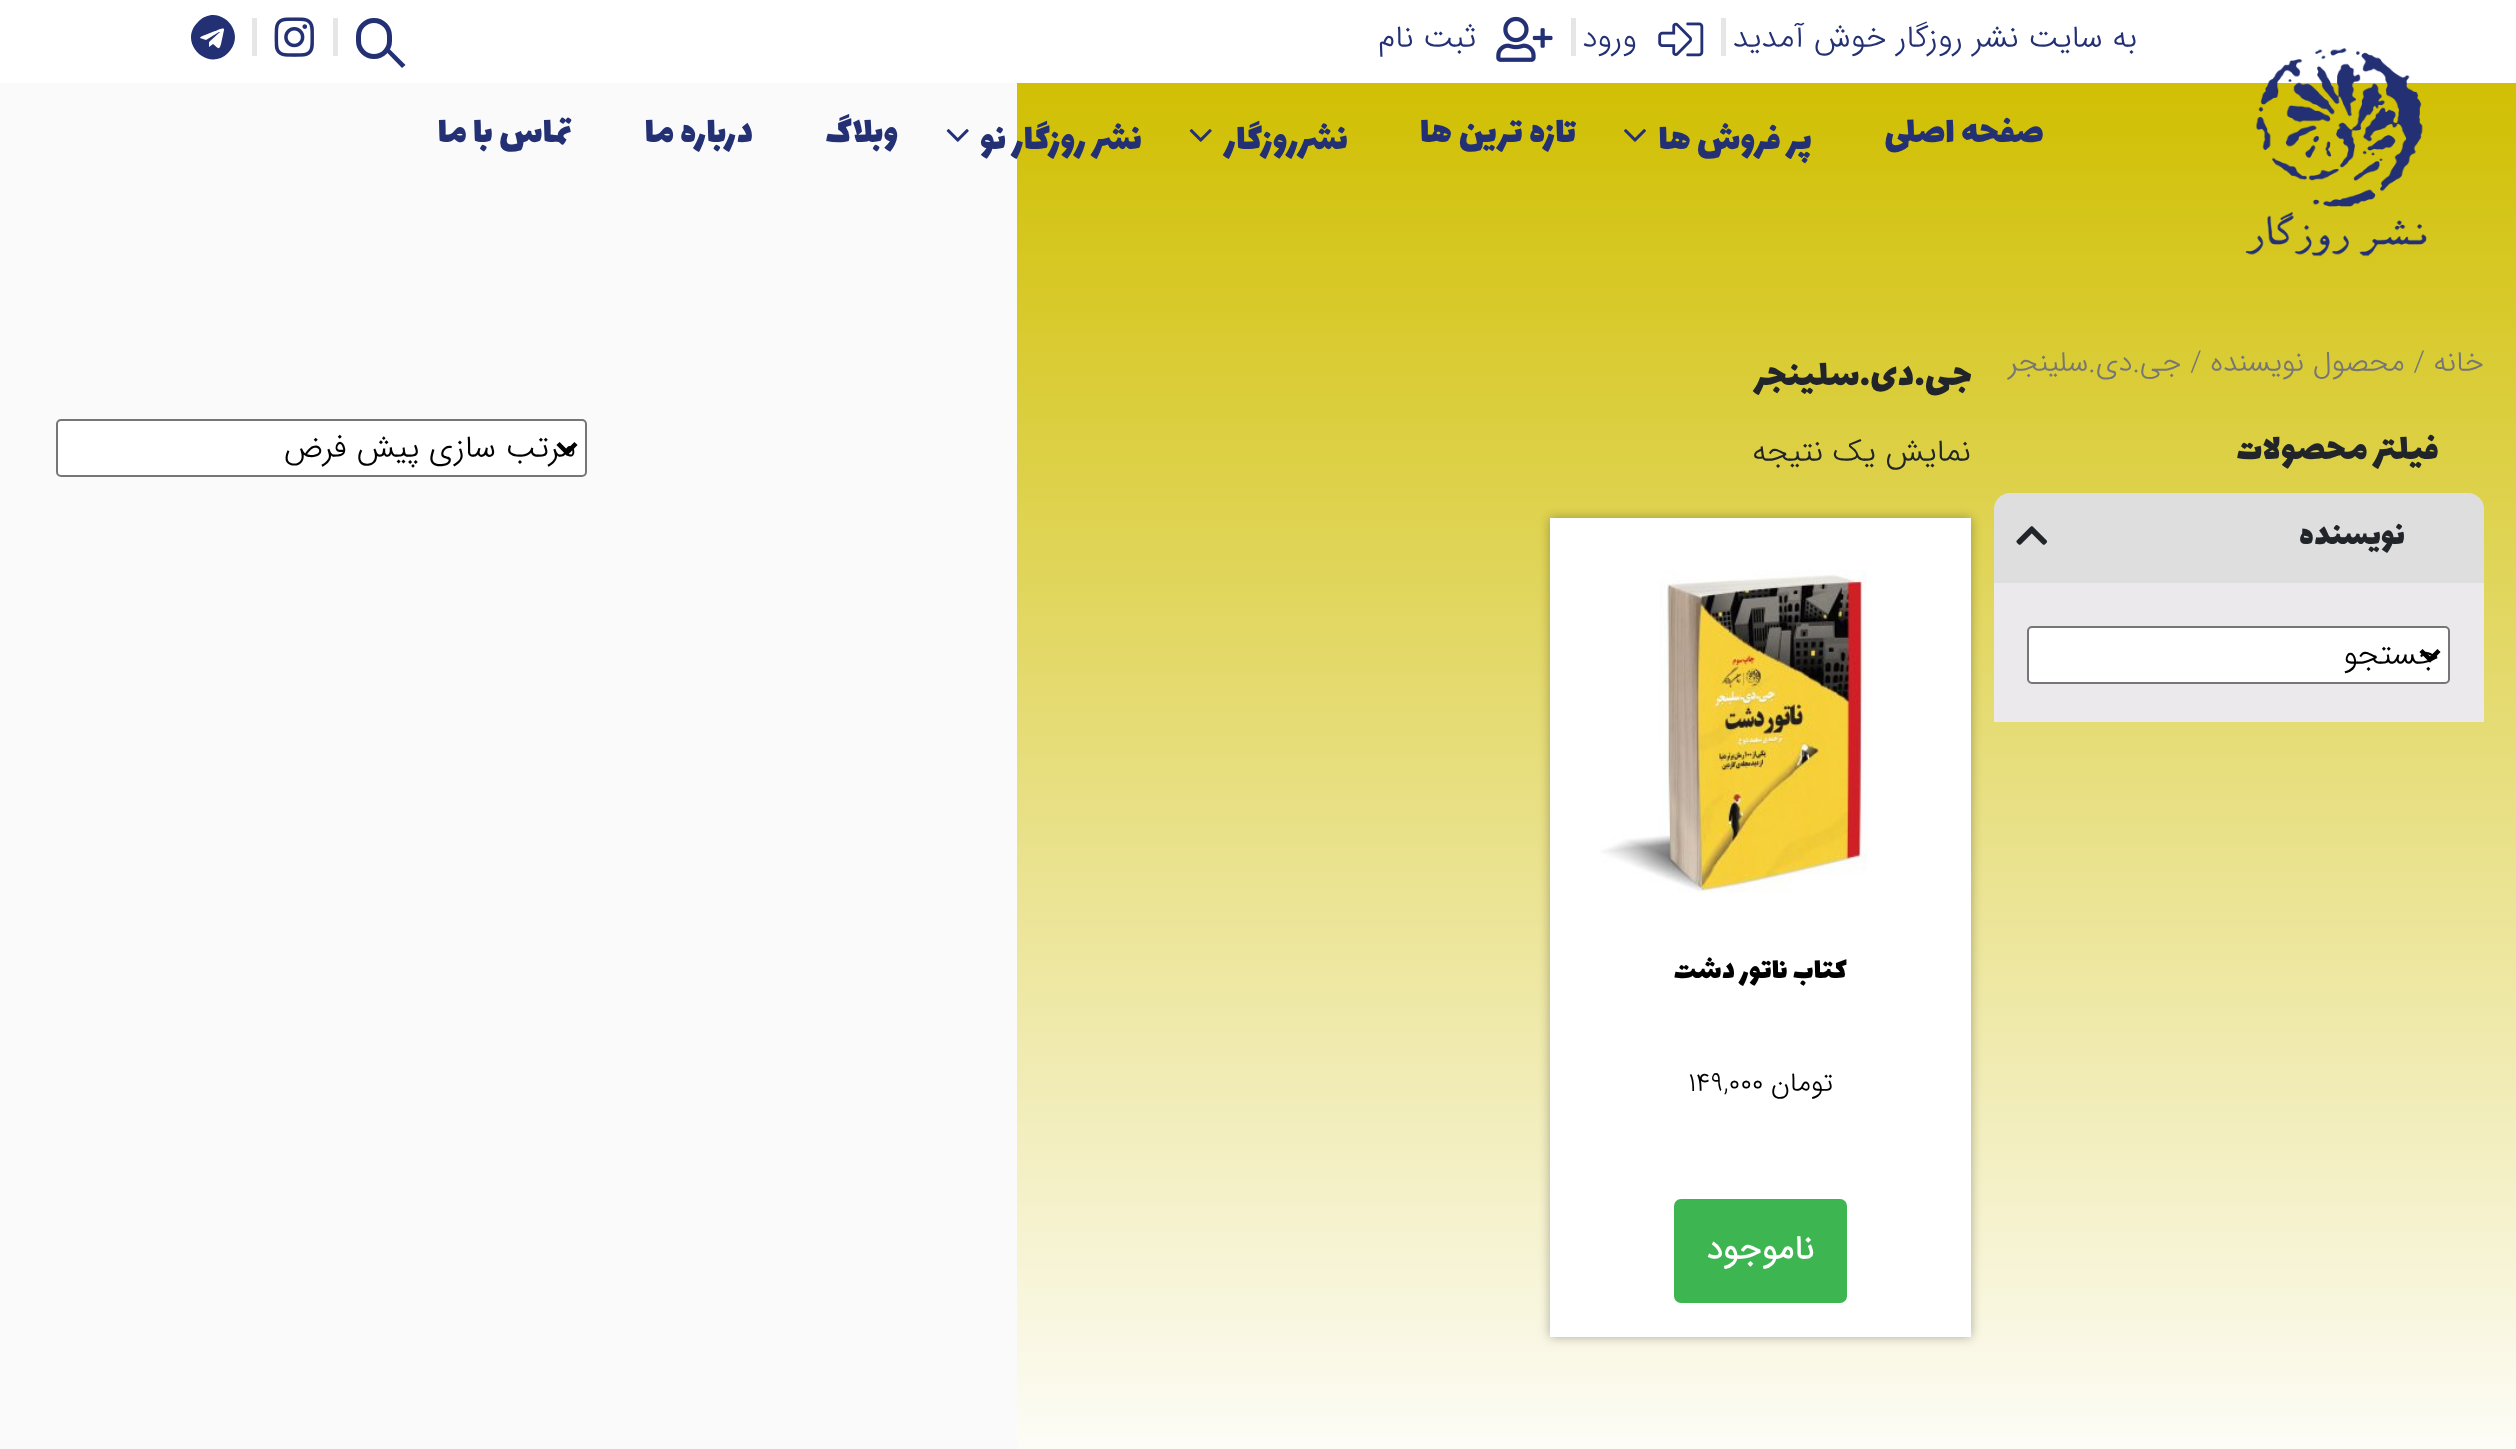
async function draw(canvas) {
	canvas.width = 2516;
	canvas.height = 1449;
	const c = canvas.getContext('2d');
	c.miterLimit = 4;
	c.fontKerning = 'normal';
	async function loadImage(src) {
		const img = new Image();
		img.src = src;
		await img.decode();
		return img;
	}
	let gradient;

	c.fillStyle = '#fafafa';
	c.fillRect(0, 0, 2516, 1449);
	c.fillStyle = '#fff';
	c.fillRect(0, 0, 2516, 83);
	c.direction = 'rtl';
	c.font = '300 31.5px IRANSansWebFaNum';
	c.fillStyle = '#233074';
	c.fillText('به سایت نشر روزگار خوش آمدید', 2137, 47);
	c.fillStyle = '#e6e6e6';
	c.fillRect(1721, 18, 5, 38);
	c.drawImage(await loadImage('img1.png'), 1658, 22, 46, 35);
	c.fillStyle = '#233074';
	c.fillText('ورود', 1637, 47);
	c.fillStyle = '#e6e6e6';
	c.fillRect(1571, 18, 5, 38);
	c.drawImage(await loadImage('img2.png'), 1496, 16, 57, 46);
	c.fillStyle = '#233074';
	c.fillText('ثبت نام', 1476, 47);
	c.beginPath();
	c.roundRect(358.5, 20.5, 31, 36, 15.5);
	c.strokeStyle = '#233074';
	c.lineWidth = 5;
	c.stroke();
	c.beginPath();
	c.moveTo(386.5, 52);
	c.lineTo(389.5, 49);
	c.lineTo(405.5, 65);
	c.lineTo(402, 68);
	c.closePath();
	c.fill();
	c.fillStyle = '#e6e6e6';
	c.fillRect(333, 18, 5, 38);
	c.drawImage(await loadImage('img3.png'), 274, 17, 40, 40);
	c.fillRect(252, 18, 5, 38);
	c.fillStyle = '#233074';
	c.beginPath();
	c.moveTo(198, 22);
	c.bezierCurveTo(218, 1, 249, 32, 228, 53);
	c.bezierCurveTo(208, 73, 177, 42, 198, 22);
	c.closePath();
	c.moveTo(224, 30);
	c.bezierCurveTo(225, 26, 216, 31, 215, 31);
	c.lineTo(205, 35);
	c.bezierCurveTo(202, 36, 200, 37, 200, 38);
	c.lineTo(206, 40);
	c.lineTo(219, 32);
	c.lineTo(220, 32);
	c.lineTo(209, 42);
	c.lineTo(209, 47);
	c.lineTo(213, 44);
	c.bezierCurveTo(218, 48, 219, 51, 221, 44);
	c.closePath();
	c.fill();
	gradient = c.createLinearGradient(1767, 83, 1767, 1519);
	gradient.addColorStop(0.01, '#d1c005');
	gradient.addColorStop(0.98, '#fefefe');
	c.fillStyle = gradient;
	c.fillRect(1017, 83, 1499, 1366);
	c.drawImage(await loadImage('img4.png'), 2245, 48, 182, 209);
	c.font = '39.5px Lalezar';
	c.fillStyle = '#233074';
	c.fillText('صفحه اصلی', 2044, 142);
	c.fillText('پر فروش ها', 1812, 149);
	c.drawImage(await loadImage('img5.png'), 1624, 129, 22, 13);
	c.fillText('تازه ترین ها', 1576, 142);
	c.fillText('نشرروزگار', 1348, 149);
	c.drawImage(await loadImage('img6.png'), 1189, 129, 23, 13);
	c.fillText('نشر روزگار نو', 1142, 149);
	c.drawImage(await loadImage('img7.png'), 946, 129, 23, 13);
	for (const [text, x, y] of [
		['وبلاگ', 898, 142],
		['درباره ما', 753, 142],
		['تماس با ما', 572, 142],
	]) {
		c.fillText(text, x, y);
	}
	c.font = '300 29px IRANSansWebFaNum';
	c.fillStyle = '#767676';
	c.fillText('خانه', 2484, 371);
	c.fillText('/ محصول نویسنده / جی.دی.سلینجر', 2425, 371);
	c.font = '39.5px Lalezar';
	c.fillStyle = '#212529';
	c.fillText('فیلتر محصولات', 2439, 459);
	c.fillStyle = '#dedede';
	c.beginPath();
	c.roundRect(1994, 493, 490, 94, [16, 16, 0, 0]);
	c.fill();
	c.fillStyle = '#ebe9eb';
	c.fillRect(1994, 583, 490, 139);
	c.font = '36px Lalezar';
	c.fillStyle = '#212529';
	c.fillText('نویسنده', 2405, 544);
	c.drawImage(await loadImage('img8.png'), 2016, 526, 32, 19);
	c.fillStyle = '#fff';
	c.beginPath();
	c.roundRect(2028, 627, 421, 56, 4);
	c.fill();
	c.strokeStyle = '#767676';
	c.lineWidth = 2;
	c.stroke();
	c.beginPath();
	c.moveTo(2421, 650.5);
	c.lineTo(2430, 659.5);
	c.lineTo(2439, 650.5);
	c.strokeStyle = '#000';
	c.lineWidth = 4.5;
	c.stroke();
	c.font = '300 31.5px IRANSansWebFaNum';
	c.fillStyle = '#000';
	c.fillText('جستجو', 2439, 664);
	c.font = '39.5px Lalezar';
	c.fillStyle = '#212529';
	c.fillText('جی.دی.سلینجر', 1972, 385);
	c.font = '300 31.5px IRANSansWebFaNum';
	c.fillText('نمایش یک نتیجه', 1971, 461);
	c.fillStyle = '#fff';
	c.beginPath();
	c.roundRect(57, 420, 529, 56, 4);
	c.fill();
	c.strokeStyle = '#767676';
	c.lineWidth = 2;
	c.stroke();
	c.beginPath();
	c.moveTo(558, 443.5);
	c.lineTo(567, 452.5);
	c.lineTo(576, 443.5);
	c.strokeStyle = '#000';
	c.lineWidth = 4.5;
	c.stroke();
	c.fillStyle = '#000';
	c.fillText('مرتب سازی پیش فرض', 576, 457);
	c.fillStyle = '#0000004d';
	c.filter = 'blur(5.5px)';
	c.beginPath();
	c.rect(1550, 518, 421, 819);
	c.fill();
	c.filter = 'none';
	c.fillStyle = '#fff';
	c.fillRect(1550, 518, 421, 819);
	c.drawImage(await loadImage('img9.png'), 1600, 570, 267, 323);
	c.font = '31.5px Lalezar';
	c.fillStyle = '#000';
	c.fillText('کتاب ناتور دشت', 1847, 978);
	c.font = '300 27px IRANSansWebFaNum';
	c.fillText('تومان', 1833, 1091);
	c.direction = 'ltr';
	c.fillText('۱۴۹,۰۰۰', 1688, 1091);
	c.fillStyle = '#3db551';
	c.beginPath();
	c.roundRect(1674, 1199, 173, 104, 7);
	c.fill();
	c.direction = 'rtl';
	c.font = 'bold 34px IRANSansWebFaNum';
	c.fillStyle = '#fff';
	c.fillText('ناموجود', 1814, 1259);
}

draw(document.querySelector('canvas'));
